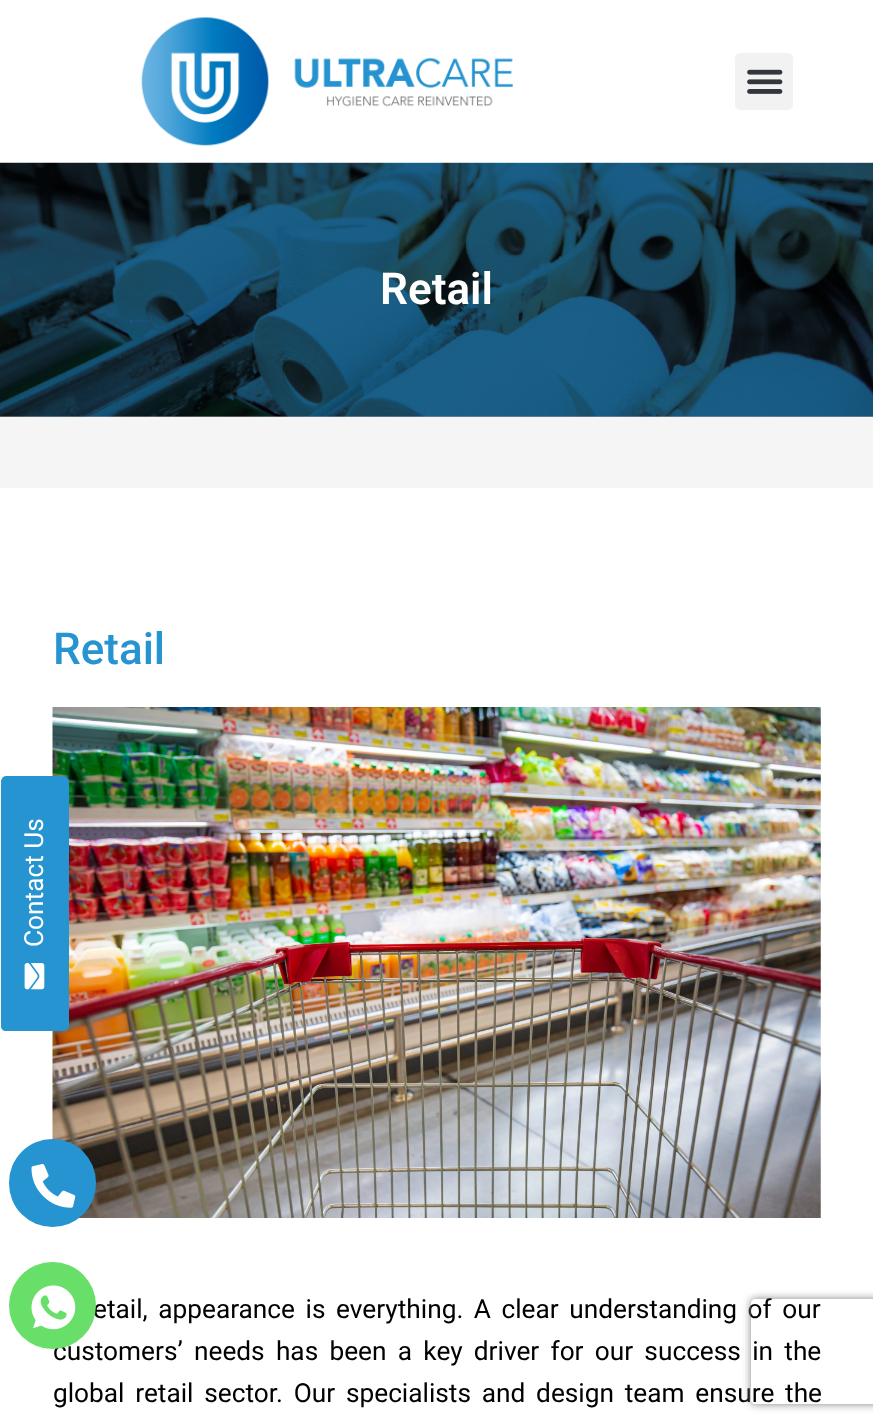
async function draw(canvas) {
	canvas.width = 873;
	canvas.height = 1428;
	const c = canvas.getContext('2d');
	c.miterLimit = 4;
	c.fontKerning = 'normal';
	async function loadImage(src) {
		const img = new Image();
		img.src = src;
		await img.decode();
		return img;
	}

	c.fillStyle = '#fff';
	c.fillRect(0, 0, 873, 1428);
	c.drawImage(await loadImage('img1.png'), 141, 17, 372, 129);
	c.fillStyle = '#f2f2f2';
	c.beginPath();
	c.roundRect(735, 53, 58, 57, 5);
	c.fill();
	c.drawImage(await loadImage('img2.png'), 747, 69, 36, 25);
	c.drawImage(await loadImage('img7.png'), 52, 707, 769, 511);
	c.fillStyle = '#2694d1';
	c.beginPath();
	c.moveTo(1, 1026);
	c.lineTo(1, 782);
	c.bezierCurveTo(1, 779, 3, 776, 6, 776);
	c.lineTo(64, 776);
	c.bezierCurveTo(66, 776, 69, 779, 69, 782);
	c.lineTo(69, 1026);
	c.bezierCurveTo(69, 1029, 66, 1031, 64, 1031);
	c.lineTo(6, 1031);
	c.bezierCurveTo(3, 1031, 1, 1029, 1, 1026);
	c.closePath();
	c.fill();
	c.font = '26.25px Roboto';
	c.fillStyle = '#fff';
	c.save();
	c.translate(43, 947);
	c.rotate(-90 * Math.PI / 180);
	c.fillText('Contact Us', 0, 0);
	c.restore();
	c.drawImage(await loadImage('img3.png'), 24, 963, 21, 27);
	c.fillStyle = '#2694d1';
	c.beginPath();
	c.roundRect(9, 1139, 87, 88, 43.5);
	c.fill();
	c.drawImage(await loadImage('img4.png'), 31, 1164, 45, 44);
	c.wordSpacing = '4px';
	c.fillStyle = '#000';
	c.fillText('etail, appearance is everything. A clear understanding of our', 93, 1318);
	c.wordSpacing = '4.75px';
	c.fillText('customers’ needs has been a key driver for our success in the', 53, 1360);
	c.fillStyle = '#67df69';
	c.beginPath();
	c.arc(52.5, 1305.5, 43.5, 0, 2 * Math.PI);
	c.fill();
	c.drawImage(await loadImage('img5.png'), 31, 1285, 45, 45);
	c.fillStyle = '#9f9f9f';
	c.fillRect(0, 416, 873, 1);
	c.drawImage(await loadImage('img6.png'), 0, 162, 873, 255);
	c.wordSpacing = '0px';
	c.font = '600 44px Roboto';
	c.fillStyle = '#fff';
	c.fillText('Retail', 380, 304);
	c.fillStyle = '#f5f5f5';
	c.fillRect(0, 417, 873, 71);
	c.font = '500 44px Roboto';
	c.fillStyle = '#2694d1';
	c.fillText('Retail', 53, 664);
	c.wordSpacing = '4.25px';
	c.font = '26.25px Roboto';
	c.fillStyle = '#000';
	c.fillText('global retail sector. Our specialists and design team ensure the', 53, 1402);
	c.save();
	c.beginPath();
	c.moveTo(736, 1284);
	c.lineTo(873, 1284);
	c.lineTo(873, 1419);
	c.lineTo(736, 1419);
	c.closePath();
	c.moveTo(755, 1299);
	c.lineTo(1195, 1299);
	c.bezierCurveTo(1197, 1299, 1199, 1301, 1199, 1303);
	c.lineTo(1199, 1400);
	c.bezierCurveTo(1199, 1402, 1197, 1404, 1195, 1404);
	c.lineTo(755, 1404);
	c.bezierCurveTo(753, 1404, 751, 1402, 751, 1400);
	c.lineTo(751, 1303);
	c.bezierCurveTo(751, 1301, 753, 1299, 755, 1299);
	c.closePath();
	c.clip('evenodd');
	c.fillStyle = '#808080';
	c.filter = 'blur(4.5px)';
	c.beginPath();
	c.roundRect(751, 1299, 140, 105, 4);
	c.fill();
	c.filter = 'none';
	c.restore();
}

draw(document.querySelector('canvas'));
